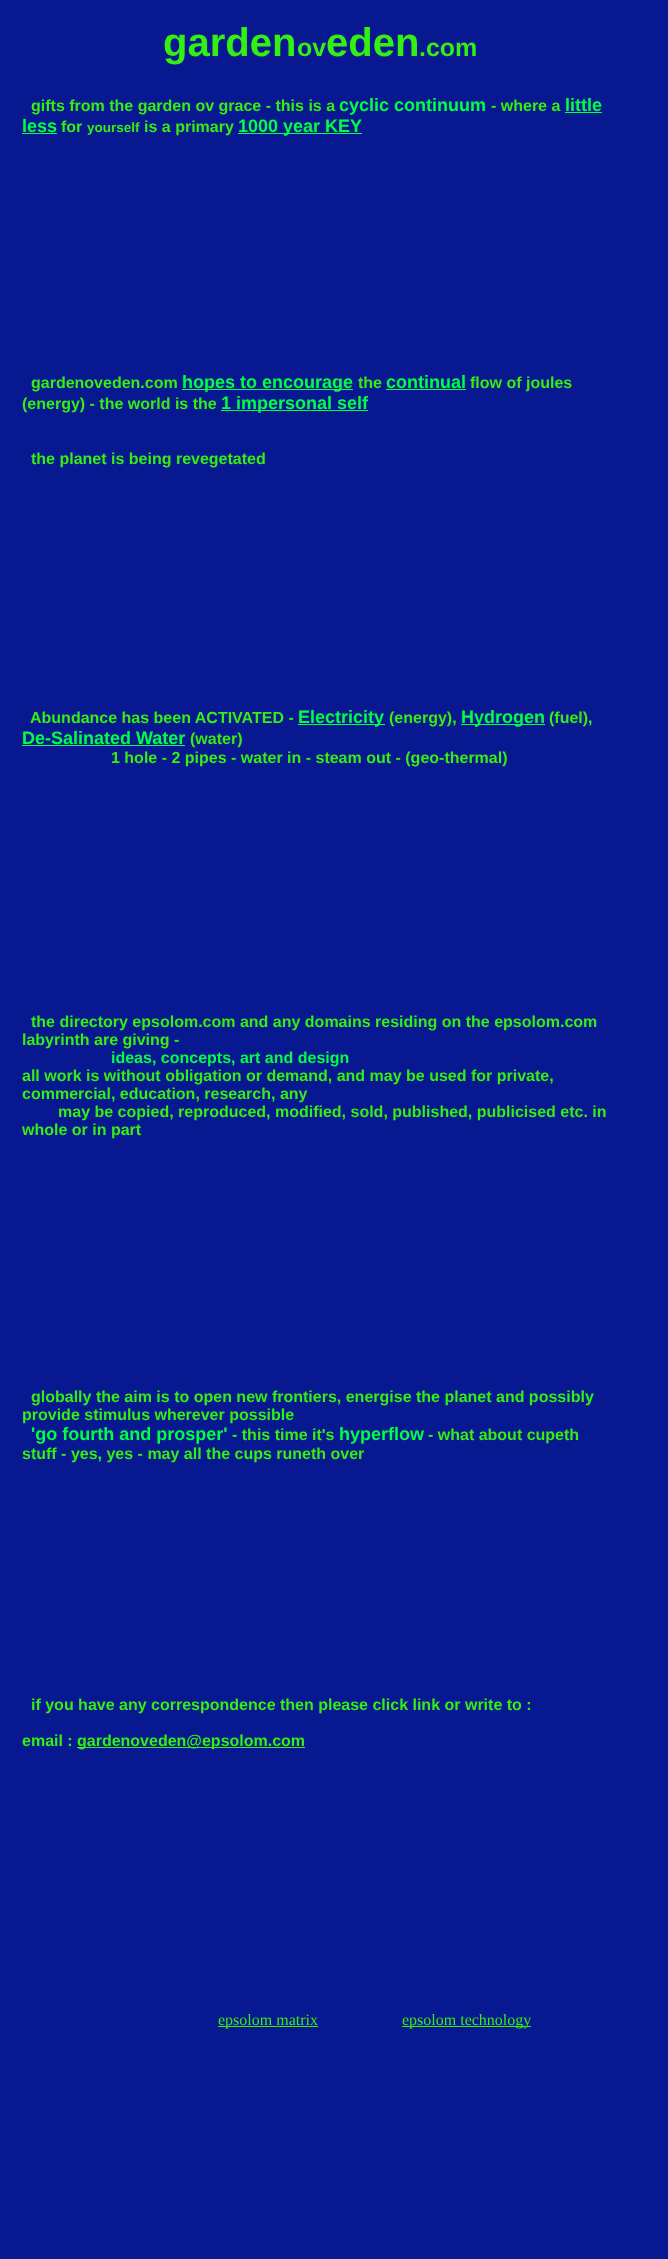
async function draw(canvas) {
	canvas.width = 668;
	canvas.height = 2259;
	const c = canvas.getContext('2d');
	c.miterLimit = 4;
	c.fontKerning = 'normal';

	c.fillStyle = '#081890';
	c.fillRect(0, 0, 668, 2259);
	c.font = 'bold 40px Liberation Sans';
	c.fillStyle = '#33f012';
	c.fillText('garden', 163, 56);
	c.font = 'bold 25px Liberation Sans';
	c.fillText('ov', 297, 56);
	c.font = 'bold 40px Liberation Sans';
	c.fillText('eden', 326, 56);
	c.font = 'bold 25px Liberation Sans';
	c.fillText('.com', 419, 56);
	c.font = 'bold 16px Liberation Sans';
	c.fillText('gifts from the garden ov grace - this is a', 31, 111);
	c.font = 'bold 18px Liberation Sans';
	c.fillStyle = '#0f4';
	c.fillText('cyclic continuum', 339, 111);
	c.font = 'bold 16px Liberation Sans';
	c.fillStyle = '#33f012';
	c.fillText('- where a', 491, 111);
	c.font = 'bold 18px Liberation Sans';
	c.fillStyle = '#0f4';
	c.fillText('little', 565, 111);
	c.fillRect(565, 112, 37, 1);
	c.fillText('less', 22, 132);
	c.fillRect(22, 133, 35, 1);
	c.font = 'bold 16px Liberation Sans';
	c.fillStyle = '#33f012';
	c.fillText('for', 61, 132);
	c.font = 'bold 13.5px Liberation Sans';
	c.fillText('yourself', 87, 132);
	c.font = 'bold 16px Liberation Sans';
	c.fillText('is a primary', 144, 132);
	c.fillStyle = '#0f4';
	c.fillRect(238, 133, 124, 1);
	c.font = 'bold 18px Liberation Sans';
	c.fillText('1000 year KEY', 238, 132);
	c.font = 'bold 16px Liberation Sans';
	c.fillStyle = '#33f012';
	c.fillText('gardenoveden.com', 31, 388);
	c.fillStyle = '#0f4';
	c.fillRect(182, 389, 171, 1);
	c.font = 'bold 18px Liberation Sans';
	c.fillText('hopes to encourage', 182, 388);
	c.font = 'bold 16px Liberation Sans';
	c.fillStyle = '#33f012';
	c.fillText('the', 358, 388);
	c.font = 'bold 18px Liberation Sans';
	c.fillStyle = '#0f4';
	c.fillText('continual', 386, 388);
	c.font = 'bold 16px Liberation Sans';
	c.fillStyle = '#33f012';
	c.fillText('flow of joules', 470, 388);
	c.fillStyle = '#0f4';
	c.fillRect(386, 389, 80, 1);
	c.fillStyle = '#33f012';
	c.fillText('(energy) - the world is the', 22, 409);
	c.fillStyle = '#0f4';
	c.fillRect(221, 410, 147, 1);
	c.font = 'bold 18px Liberation Sans';
	c.fillText('1 impersonal self', 221, 409);
	c.font = 'bold 16px Liberation Sans';
	c.fillStyle = '#33f012';
	c.fillText('the planet is being revegetated', 31, 464);
	c.fillText('Abundance has been ACTIVATED -', 30, 723);
	c.fillStyle = '#0f4';
	c.fillRect(298, 724, 87, 1);
	c.font = 'bold 18px Liberation Sans';
	c.fillText('Electricity', 298, 723);
	c.font = 'bold 16px Liberation Sans';
	c.fillStyle = '#33f012';
	c.fillText('(energy),', 389, 723);
	c.fillStyle = '#0f4';
	c.fillRect(461, 724, 84, 1);
	c.font = 'bold 18px Liberation Sans';
	c.fillText('Hydrogen', 461, 723);
	c.font = 'bold 16px Liberation Sans';
	c.fillStyle = '#33f012';
	c.fillText('(fuel),', 549, 723);
	c.font = 'bold 18px Liberation Sans';
	c.fillStyle = '#0f4';
	c.fillText('De-Salinated Water', 22, 744);
	c.fillRect(22, 745, 163, 1);
	c.font = 'bold 16px Liberation Sans';
	c.fillStyle = '#33f012';
	for (const [text, x, y] of [
		['(water)', 190, 744],
		['1 hole - 2 pipes - water in - steam out - (geo-thermal)', 111, 763],
		['the directory epsolom.com and any domains residing on the epsolom.com', 31, 1027],
		['labyrinth are giving -', 22, 1045],
	]) {
		c.fillText(text, x, y);
	}
	c.fillStyle = '#0f4';
	c.fillText('ideas, concepts, art and design', 111, 1063);
	c.fillStyle = '#33f012';
	for (const [text, x, y] of [
		['all work is without obligation or demand, and may be used for private,', 22, 1081],
		['commercial, education, research, any', 22, 1099],
		['may be copied, reproduced, modified, sold, published, publicised etc. in', 58, 1117],
		['whole or in part', 22, 1135],
		['globally the aim is to open new frontiers, energise the planet and possibly', 31, 1402],
		['provide stimulus wherever possible', 22, 1420],
	]) {
		c.fillText(text, x, y);
	}
	c.font = 'bold 18px Liberation Sans';
	c.fillStyle = '#0f4';
	c.fillText('\'go fourth and prosper\'', 31, 1440);
	c.font = 'bold 16px Liberation Sans';
	c.fillStyle = '#33f012';
	c.fillText('- this time it\'s', 232, 1440);
	c.font = 'bold 18px Liberation Sans';
	c.fillStyle = '#0f4';
	c.fillText('hyperflow', 339, 1440);
	c.font = 'bold 16px Liberation Sans';
	c.fillStyle = '#33f012';
	for (const [text, x, y] of [
		['- what about cupeth', 428, 1440],
		['stuff - yes, yes - may all the cups runeth over', 22, 1459],
		['if you have any correspondence then please click link or write to :', 31, 1710],
		['email :', 22, 1746],
	]) {
		c.fillText(text, x, y);
	}
	c.fillRect(77, 1747, 228, 1);
	c.fillText('gardenoveden@epsolom.com', 77, 1746);
	c.fillRect(218, 2026, 100, 1);
	c.font = '16px Liberation Serif';
	c.fillText('epsolom matrix', 218, 2025);
	c.fillRect(402, 2026, 129, 1);
	c.fillText('epsolom technology', 402, 2025);
}

draw(document.querySelector('canvas'));
